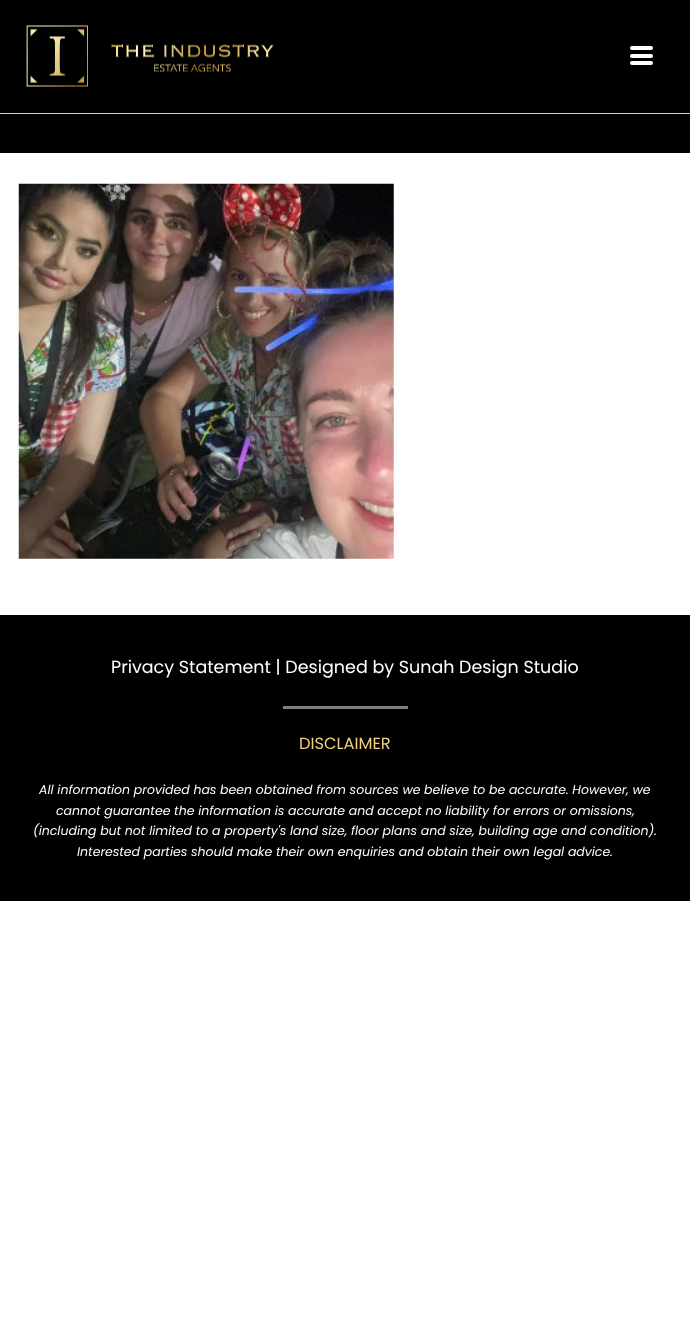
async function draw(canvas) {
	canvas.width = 690;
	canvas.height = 1318;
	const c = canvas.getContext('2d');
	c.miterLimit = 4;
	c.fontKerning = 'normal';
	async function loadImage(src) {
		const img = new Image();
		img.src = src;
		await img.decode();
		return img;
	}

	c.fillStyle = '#fff';
	c.fillRect(0, 0, 690, 1318);
	c.fillStyle = '#000';
	c.fillRect(0, 0, 690, 153);
	c.fillStyle = '#f0d07c';
	c.fillRect(0, 113, 690, 1);
	c.drawImage(await loadImage('img1.png'), 26, 25, 248, 62);
	c.fillStyle = '#fff';
	c.beginPath();
	c.roundRect(630, 46, 23, 4, 2);
	c.fill();
	c.beginPath();
	c.roundRect(630, 54, 23, 4, 2);
	c.fill();
	c.beginPath();
	c.roundRect(630, 61, 23, 4, 2);
	c.fill();
	c.drawImage(await loadImage('img2.png'), 18, 183, 376, 376);
	c.fillStyle = '#000';
	c.fillRect(0, 615, 690, 286);
	c.font = '17.5px Poppins';
	c.fillStyle = '#fff';
	c.fillText('Privacy Statement | Designed by Sunah Design Studio', 111, 673);
	c.fillStyle = '#808080';
	c.fillRect(283, 706, 125, 3);
	c.font = '16.25px Poppins';
	c.fillStyle = '#f0d07d';
	c.fillText('DISCLAIMER', 299, 749);
	c.font = 'italic 12.5px Poppins';
	c.fillStyle = '#fff';
	for (const [text, x, y] of [
		['All information provided has been obtained from sources we believe to be accurate. However, we', 39, 794],
		['cannot guarantee the information is accurate and accept no liability for errors or omissions,', 56, 815],
		['(including but not limited to a property\'s land size, floor plans and size, building age and condition).', 33, 835],
		['Interested parties should make their own enquiries and obtain their own legal advice.', 77, 856],
	]) {
		c.fillText(text, x, y);
	}
}

draw(document.querySelector('canvas'));
